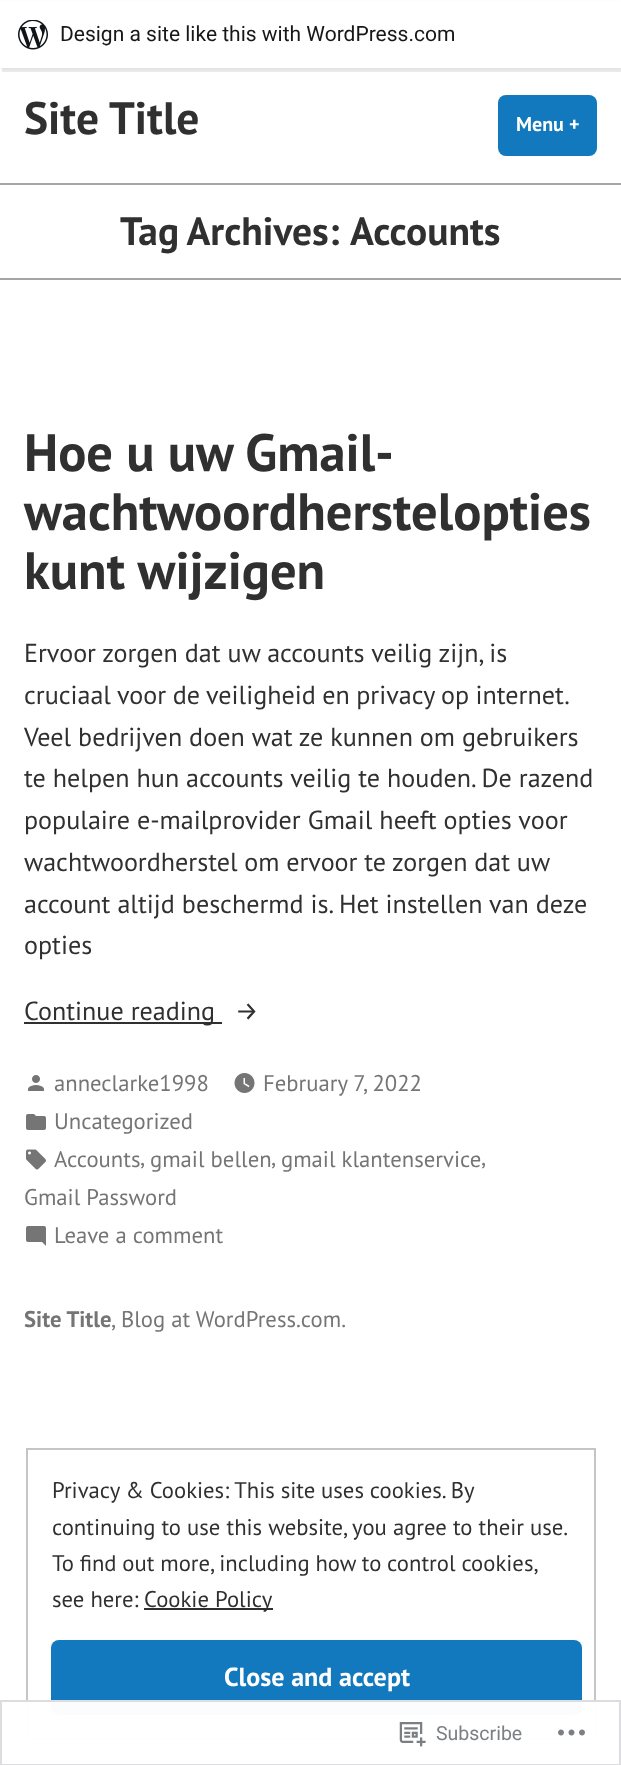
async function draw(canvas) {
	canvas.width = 621;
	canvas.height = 1765;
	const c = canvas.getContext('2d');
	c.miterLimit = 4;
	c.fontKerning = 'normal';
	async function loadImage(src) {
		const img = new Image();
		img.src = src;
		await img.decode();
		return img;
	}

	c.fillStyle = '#fff';
	c.fillRect(0, 0, 621, 1765);
	c.fillStyle = '#0000000d';
	c.filter = 'blur(1.5px)';
	c.beginPath();
	c.rect(0, 2, 621, 67);
	c.fill();
	c.filter = 'none';
	c.fillStyle = '#00000014';
	c.beginPath();
	c.moveTo(2, 68);
	c.lineTo(2, 72);
	c.lineTo(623, 72);
	c.lineTo(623, 5);
	c.lineTo(621, 5);
	c.lineTo(621, 68);
	c.closePath();
	c.fill();
	c.fillStyle = '#fff';
	c.fillRect(0, 1, 621, 67);
	c.drawImage(await loadImage('img1.png'), 18, 20, 30, 30);
	c.font = '21px Roboto';
	c.fillStyle = '#171717';
	c.fillText('Design a site like this with WordPress.com', 60, 41);
	c.font = 'bold 45.5px PT Sans';
	c.fillStyle = '#303030';
	c.fillText('Site Title', 24, 134);
	c.fillStyle = '#1279be';
	c.beginPath();
	c.roundRect(498, 95, 99, 61, 8);
	c.fill();
	c.font = 'bold 20px PT Sans';
	c.fillStyle = '#fff';
	c.fillText('Menu +', 516, 131);
	c.fillStyle = '#a5a5a5';
	c.fillRect(0, 183, 621, 2);
	c.wordSpacing = '-1px';
	c.font = 'bold 39.5px PT Sans';
	c.fillStyle = '#303030';
	c.fillText('Tag Archives:', 120, 245);
	c.wordSpacing = '0px';
	c.fillText('Accounts', 350, 245);
	c.fillStyle = '#a5a5a5';
	c.fillRect(0, 278, 621, 2);
	c.font = 'bold 52.5px PT Sans';
	c.fillStyle = '#303030';
	for (const [text, x, y] of [
		['Hoe u uw Gmail-', 24, 471],
		['wachtwoordherstelopties', 24, 530],
		['kunt wijzigen', 24, 589],
	]) {
		c.fillText(text, x, y);
	}
	c.font = '26.1px PT Sans';
	c.fillText('Ervoor zorgen dat uw accounts veilig zijn, is', 24, 662);
	c.wordSpacing = '-0.5px';
	c.fillText('cruciaal voor de veiligheid en privacy op internet.', 24, 704);
	c.wordSpacing = '0px';
	for (const [text, x, y] of [
		['Veel bedrijven doen wat ze kunnen om gebruikers', 24, 746],
		['te helpen hun accounts veilig te houden. De razend', 24, 787],
		['populaire e-mailprovider Gmail heeft opties voor', 24, 829],
	]) {
		c.fillText(text, x, y);
	}
	c.wordSpacing = '-0.25px';
	c.fillText('wachtwoordherstel om ervoor te zorgen dat uw', 24, 871);
	c.wordSpacing = '0px';
	c.fillText('account altijd beschermd is. Het instellen van deze', 24, 913);
	c.fillText('opties', 24, 954);
	c.fillRect(24, 1022, 198, 2);
	c.fillText('Continue reading', 24, 1020);
	c.font = '26.1px Fira Sans';
	c.fillText('→', 235, 1020);
	c.drawImage(await loadImage('img2.png'), 28, 1075, 16, 16);
	c.font = '22.7px PT Sans';
	c.fillStyle = '#757575';
	c.fillText('anneclarke1998', 54, 1091);
	c.drawImage(await loadImage('img3.png'), 234, 1073, 21, 20);
	c.fillText('February 7, 2022', 263, 1091);
	c.drawImage(await loadImage('img4.png'), 26, 1114, 20, 16);
	c.fillText('Uncategorized', 54, 1129);
	c.drawImage(await loadImage('img5.png'), 26, 1149, 20, 21);
	for (const [text, x, y] of [
		['Accounts', 54, 1167],
		[',', 140, 1165],
		['gmail bellen', 150, 1167],
		[',', 271, 1165],
		['gmail klantenservice', 281, 1167],
		[',', 481, 1165],
		['Gmail Password', 24, 1205],
	]) {
		c.fillText(text, x, y);
	}
	c.drawImage(await loadImage('img6.png'), 26, 1226, 20, 20);
	c.fillText('Leave a comment', 54, 1243);
	c.font = 'bold 22.7px PT Sans';
	c.fillText('Site Title', 24, 1327);
	c.font = '22.7px PT Sans';
	c.fillText(',', 111, 1327);
	c.fillText('Blog at WordPress.com.', 121, 1327);
	c.strokeStyle = '#c5c5c5';
	c.lineWidth = 2;
	c.strokeRect(27, 1449, 568, 290);
	c.wordSpacing = '-0.25px';
	c.fillStyle = '#303030';
	c.fillText('Privacy & Cookies: This site uses cookies. By', 52, 1498);
	c.wordSpacing = '0px';
	c.fillText('continuing to use this website, you agree to their use.', 52, 1535);
	c.wordSpacing = '-0.25px';
	c.fillText('To find out more, including how to control cookies,', 52, 1571);
	c.wordSpacing = '0px';
	c.fillText('see here:', 52, 1607);
	c.fillRect(144, 1608, 129, 2);
	c.fillText('Cookie Policy', 144, 1607);
	c.fillStyle = '#1279be';
	c.beginPath();
	c.roundRect(51, 1640, 531, 75, 8);
	c.fill();
	c.font = 'bold 26.1px PT Sans';
	c.fillStyle = '#fff';
	c.fillText('Close and accept', 224, 1686);
	c.fillStyle = '#fffffffa';
	c.fillRect(26, 1700, 570, 40);
	c.strokeStyle = '#dcdcdefa';
	c.strokeRect(1, 1701, 619, 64);
	c.drawImage(await loadImage('img7.png'), 399, 1722, 27, 25);
	c.font = '19.5px Roboto';
	c.fillStyle = '#7b7f84';
	c.fillText('Subscribe', 436, 1740);
	c.drawImage(await loadImage('img8.png'), 558, 1729, 27, 7);
}

draw(document.querySelector('canvas'));
